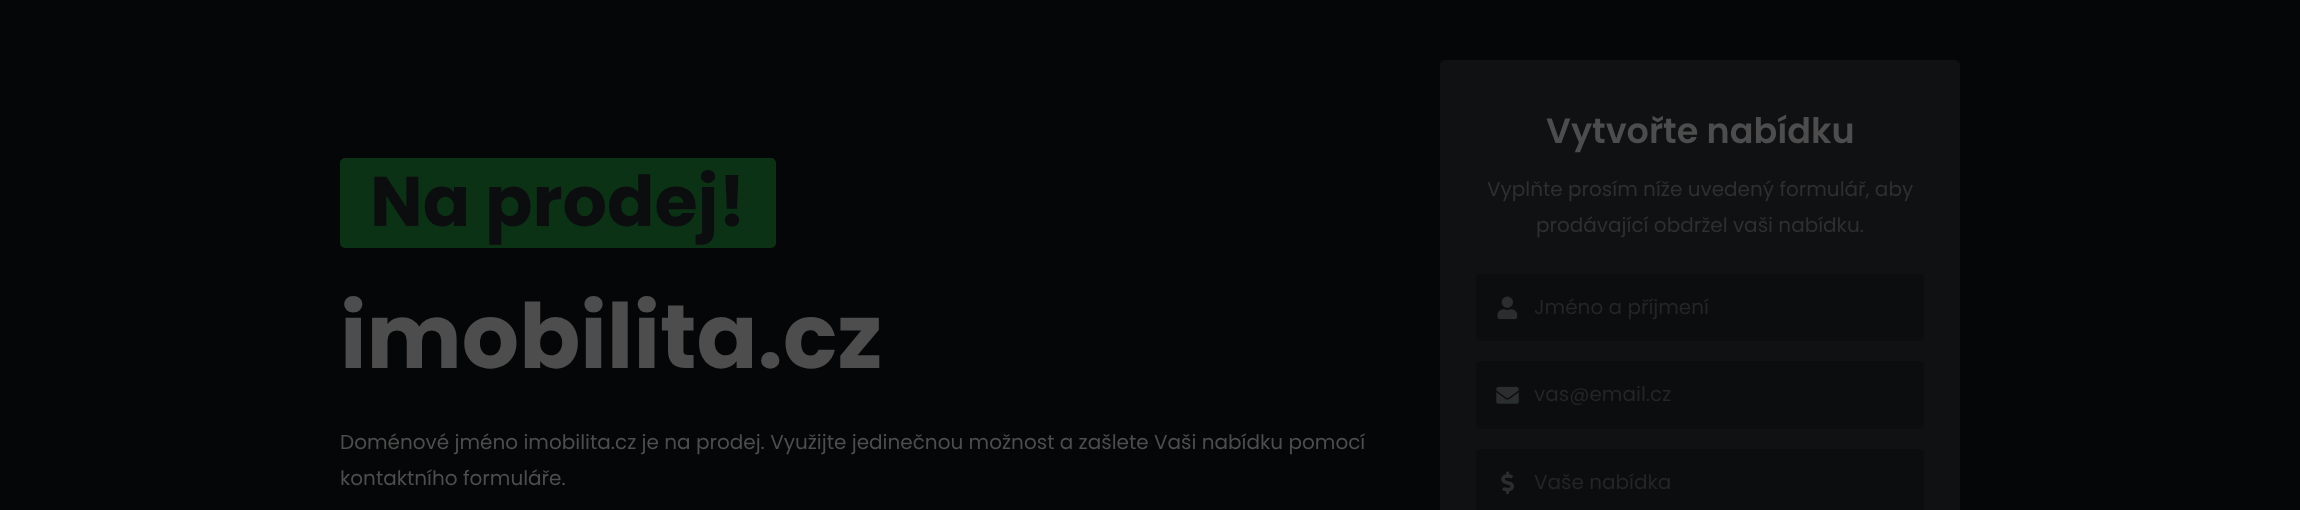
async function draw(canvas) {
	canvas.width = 2300;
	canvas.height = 510;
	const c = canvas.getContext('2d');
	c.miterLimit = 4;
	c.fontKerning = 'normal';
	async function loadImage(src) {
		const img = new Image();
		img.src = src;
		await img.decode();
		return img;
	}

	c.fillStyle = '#050607';
	c.fillRect(0, 0, 2300, 510);
	c.fillStyle = '#0c3215';
	c.beginPath();
	c.roundRect(340, 158, 436, 90, 5);
	c.fill();
	c.font = 'bold 70px Poppins';
	c.fillStyle = '#0b0d0f';
	c.fillText('Na prodej!', 370, 226);
	c.font = 'bold 90px Poppins';
	c.fillStyle = '#4d4d4d';
	c.fillText('imobilita.cz', 340, 368);
	c.font = '20px Poppins';
	c.fillText('Doménové jméno imobilita.cz je na prodej. Využijte jedinečnou možnost a zašlete Vaši nabídku pomocí', 340, 449);
	c.fillText('kontaktního formuláře.', 340, 485);
	c.fillStyle = '#101113';
	c.beginPath();
	c.roundRect(1440, 60, 520, 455, 5);
	c.fill();
	c.font = '600 35px Poppins';
	c.fillStyle = '#4d4d4d';
	c.fillText('Vytvořte nabídku', 1546, 143);
	c.font = '20px Poppins';
	c.fillStyle = '#2e2f30';
	c.fillText('Vyplňte prosím níže uvedený formulář, aby', 1487, 196);
	c.fillText('prodávající obdržel vaši nabídku.', 1536, 232);
	c.fillStyle = '#0b0d0f';
	c.beginPath();
	c.roundRect(1476, 274, 448, 67, 5);
	c.fill();
	c.drawImage(await loadImage('img1.png'), 1497, 296, 21, 24);
	c.fillStyle = '#242526';
	c.fillText('Jméno a příjmení', 1534, 314);
	c.fillStyle = '#0b0d0f';
	c.beginPath();
	c.roundRect(1476, 361, 448, 68, 5);
	c.fill();
	c.drawImage(await loadImage('img2.png'), 1496, 386, 23, 18);
	c.fillStyle = '#242526';
	c.fillText('vas@email.cz', 1534, 401);
	c.fillStyle = '#0b0d0f';
	c.beginPath();
	c.roundRect(1476, 449, 448, 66, 5);
	c.fill();
	c.drawImage(await loadImage('img3.png'), 1501, 471, 13, 24);
	c.fillStyle = '#242526';
	c.fillText('Vaše nabídka', 1534, 489);
}

draw(document.querySelector('canvas'));
